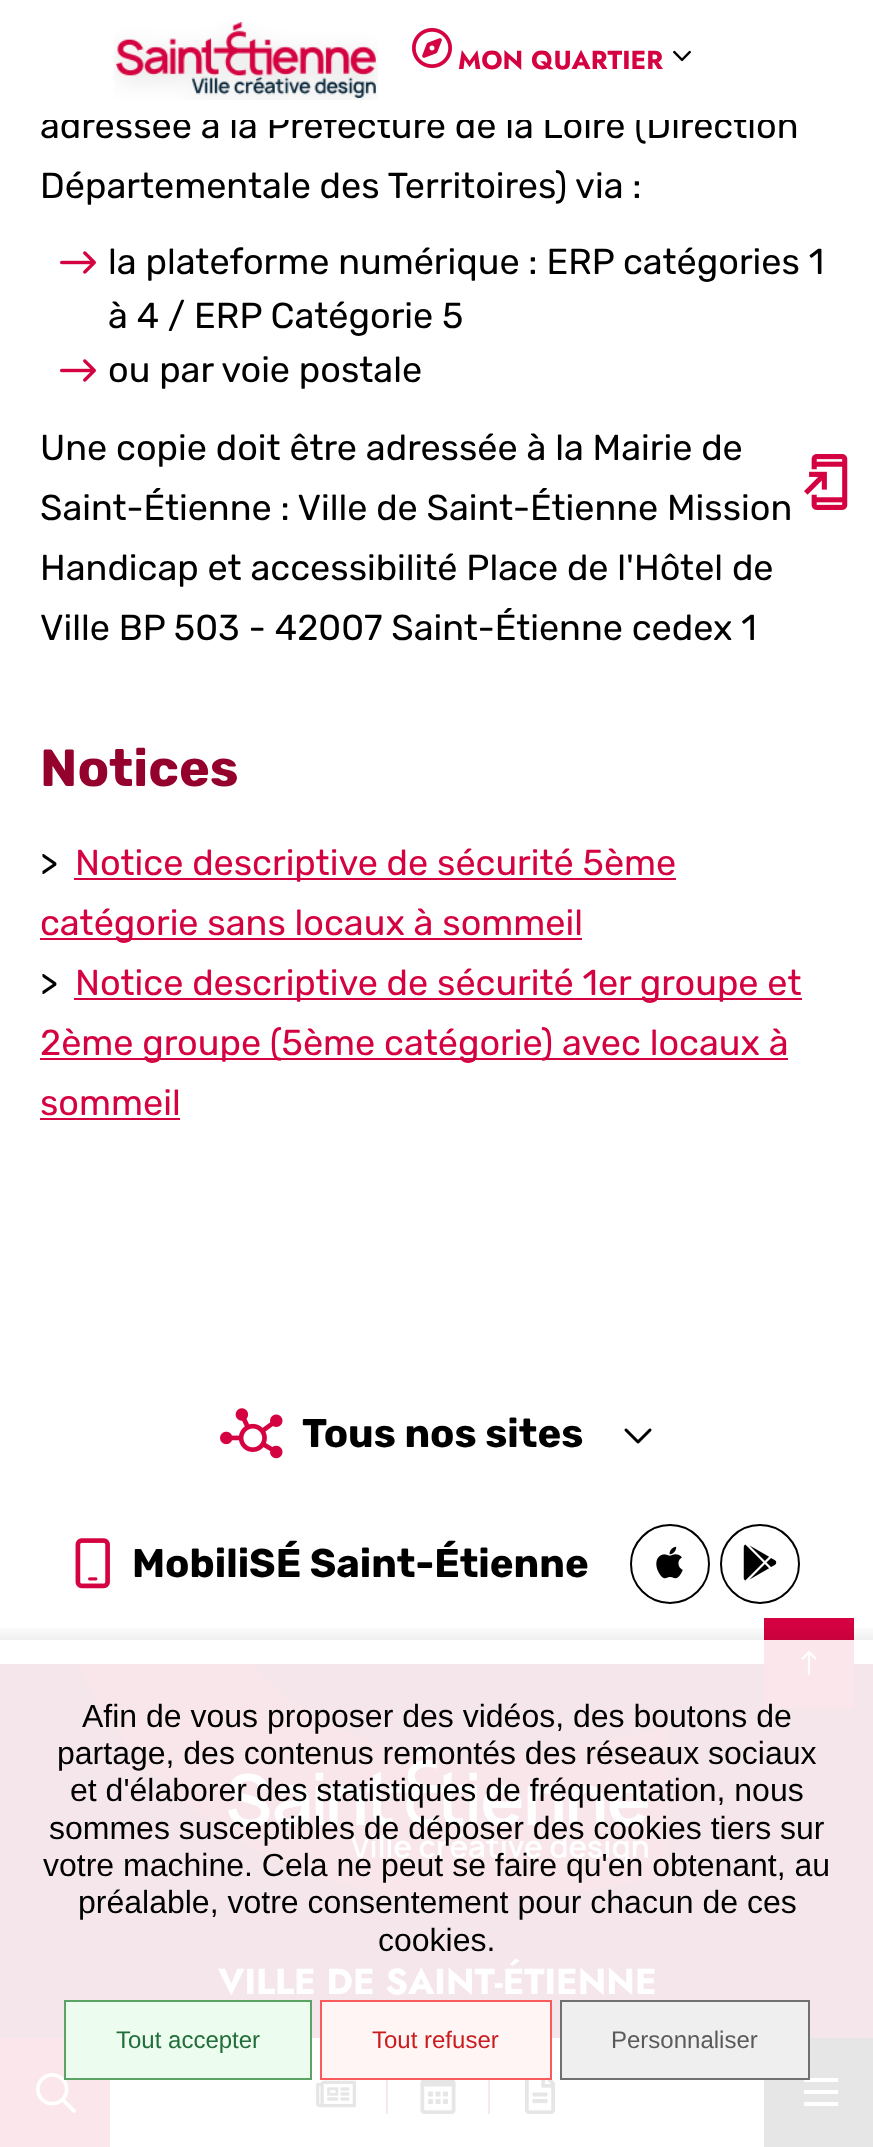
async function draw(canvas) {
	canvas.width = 873;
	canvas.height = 2147;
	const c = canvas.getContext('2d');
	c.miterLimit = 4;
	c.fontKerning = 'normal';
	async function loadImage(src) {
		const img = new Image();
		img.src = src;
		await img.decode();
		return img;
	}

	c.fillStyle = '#fff';
	c.fillRect(0, 0, 873, 2147);
	c.font = '36px Rubik';
	c.fillStyle = '#000';
	c.fillText('adressée à la Préfecture de la Loire (Direction', 40, 138);
	c.fillStyle = '#fff';
	c.fillRect(45, 110, 748, 10);
	c.drawImage(await loadImage('img1.png'), 114, 22, 264, 78);
	c.drawImage(await loadImage('img2.png'), 412, 28, 40, 40);
	c.font = 'bold 26px Jost';
	c.fillStyle = '#d50241';
	c.fillText('MON QUARTIER', 458, 69);
	c.drawImage(await loadImage('img3.png'), 673, 50, 18, 12);
	c.font = '36px Rubik';
	c.fillStyle = '#000';
	c.fillText('Départementale des Territoires) via :', 40, 198);
	c.drawImage(await loadImage('img4.png'), 60, 251, 36, 23);
	c.fillText('la plateforme numérique : ERP catégories 1', 108, 274);
	c.fillText('à 4 / ERP Catégorie 5', 108, 328);
	c.drawImage(await loadImage('img4.png'), 60, 359, 36, 23);
	for (const [text, x, y] of [
		['ou par voie postale', 108, 382],
		['Une copie doit être adressée à la Mairie de', 40, 460],
		['Saint-Étienne : Ville de Saint-Étienne Mission', 40, 520],
		['Handicap et accessibilité Place de l\'Hôtel de', 40, 580],
		['Ville BP 503 - 42007 Saint-Étienne cedex 1', 40, 640],
	]) {
		c.fillText(text, x, y);
	}
	c.font = 'bold 52px Rubik';
	c.fillStyle = '#95012d';
	c.fillText('Notices', 40, 786);
	c.font = '36px Rubik';
	c.fillStyle = '#000';
	c.fillText('>', 40, 875);
	c.fillStyle = '#d50241';
	c.fillRect(74, 878, 602, 2);
	c.fillText('Notice descriptive de sécurité 5ème', 75, 875);
	c.fillRect(40, 938, 542, 2);
	c.fillText('catégorie sans locaux à sommeil', 40, 935);
	c.fillStyle = '#000';
	c.fillText('>', 40, 995);
	c.fillStyle = '#d50241';
	c.fillRect(74, 998, 728, 2);
	c.fillText('Notice descriptive de sécurité 1er groupe et', 75, 995);
	c.fillRect(40, 1058, 748, 2);
	c.fillText('2ème groupe (5ème catégorie) avec locaux à', 40, 1055);
	c.fillText('sommeil', 40, 1115);
	c.fillRect(40, 1118, 140, 2);
	c.drawImage(await loadImage('img5.png'), 804, 454, 44, 56);
	c.fillStyle = '#fbe6ec';
	c.fillRect(0, 2038, 110, 109);
	c.drawImage(await loadImage('img6.png'), 36, 2073, 40, 40);
	c.drawImage(await loadImage('img7.png'), 316, 2080, 40, 28);
	c.fillRect(386, 2074, 2, 40);
	c.drawImage(await loadImage('img8.png'), 420, 2080, 36, 34);
	c.fillRect(488, 2074, 2, 40);
	c.drawImage(await loadImage('img9.png'), 525, 2079, 30, 35);
	for (const [x, y, w, h, color] of [
		[764, 2038, 109, 109, '#e6e6e6'],
		[804, 2078, 34, 4, '#fff'],
		[804, 2090, 34, 4, '#fff'],
		[804, 2102, 34, 4, '#fff'],
	]) {
		c.fillStyle = color;
		c.fillRect(x, y, w, h);
	}
	c.drawImage(await loadImage('img10.png'), 220, 1408, 63, 51);
	c.font = 'bold 40px Rubik';
	c.fillStyle = '#000';
	c.fillText('Tous nos sites', 302, 1447);
	c.drawImage(await loadImage('img11.png'), 624, 1428, 28, 16);
	c.drawImage(await loadImage('img12.png'), 75, 1538, 35, 51);
	c.fillText('MobiliSÉ Saint-Étienne', 132, 1577);
	c.beginPath();
	c.arc(670, 1564, 39, 0, 2 * Math.PI);
	c.strokeStyle = '#000';
	c.lineWidth = 2;
	c.stroke();
	c.drawImage(await loadImage('img13.png'), 656, 1546, 27, 33);
	c.beginPath();
	c.arc(760, 1564, 39, 0, 2 * Math.PI);
	c.stroke();
	c.drawImage(await loadImage('img14.png'), 743, 1544, 34, 37);
	c.fillStyle = '#f4e6ea';
	c.fillRect(0, 1664, 873, 374);
	c.save();
	c.beginPath();
	c.rect(78, 1664, 590, 236);
	c.clip();
	c.fillStyle = '#f8e6eb';
	c.beginPath();
	c.moveTo(178, 1797);
	c.bezierCurveTo(257, 1864, 357, 1901, 460, 1901);
	c.bezierCurveTo(530, 1900, 600, 1891, 668, 1875);
	c.lineTo(668, 1726);
	c.bezierCurveTo(600, 1744, 530, 1754, 460, 1756);
	c.bezierCurveTo(396, 1756, 310, 1729, 251, 1664);
	c.lineTo(78, 1664);
	c.bezierCurveTo(102, 1715, 136, 1760, 178, 1797);
	c.fill();
	c.restore();
	c.drawImage(await loadImage('img15.png'), 228, 1744, 420, 120);
	c.font = 'bold 36px Jost';
	c.fillStyle = '#fff';
	c.fillText('VILLE DE SAINT-ÉTIENNE', 218, 1994);
	c.fillStyle = '#d50241';
	c.fillRect(764, 1618, 90, 22);
	c.fillStyle = '#fbe6ec';
	c.fillRect(764, 1640, 90, 68);
	c.drawImage(await loadImage('img16.png'), 801, 1651, 16, 24);
	c.save();
	c.beginPath();
	c.rect(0, 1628, 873, 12);
	c.clip();
	c.fillStyle = '#00000033';
	c.filter = 'blur(14px)';
	c.beginPath();
	c.rect(-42, 1646, 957, 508);
	c.fill();
	c.filter = 'none';
	c.restore();
	c.font = '32px Liberation Sans';
	c.fillStyle = '#000';
	for (const [text, x, y] of [
		['Afin de vous proposer des vidéos, des boutons de', 82, 1727],
		['partage, des contenus remontés des réseaux sociaux', 57, 1764],
		['et d\'élaborer des statistiques de fréquentation, nous', 70, 1801],
		['sommes susceptibles de déposer des cookies tiers sur', 49, 1839],
		['votre machine. Cela ne peut se faire qu\'en obtenant, au', 43, 1876],
		['préalable, votre consentement pour chacun de ces', 78, 1913],
		['cookies.', 378, 1951],
	]) {
		c.fillText(text, x, y);
	}
	c.fillStyle = '#ecfcee';
	c.beginPath();
	c.rect(65, 2001, 246, 78);
	c.fill();
	c.strokeStyle = '#5ca466';
	c.stroke();
	c.font = '24px Liberation Sans';
	c.fillStyle = '#226e3a';
	c.fillText('Tout accepter', 116, 2048);
	c.fillStyle = '#fff5f5';
	c.beginPath();
	c.rect(321, 2001, 230, 78);
	c.fill();
	c.strokeStyle = '#f95b5d';
	c.stroke();
	c.fillStyle = '#c81c1e';
	c.fillText('Tout refuser', 372, 2048);
	c.fillStyle = '#efefef';
	c.beginPath();
	c.rect(561, 2001, 248, 78);
	c.fill();
	c.strokeStyle = '#707070';
	c.stroke();
	c.fillStyle = '#5a5a5a';
	c.fillText('Personnaliser', 611, 2048);
}

draw(document.querySelector('canvas'));
